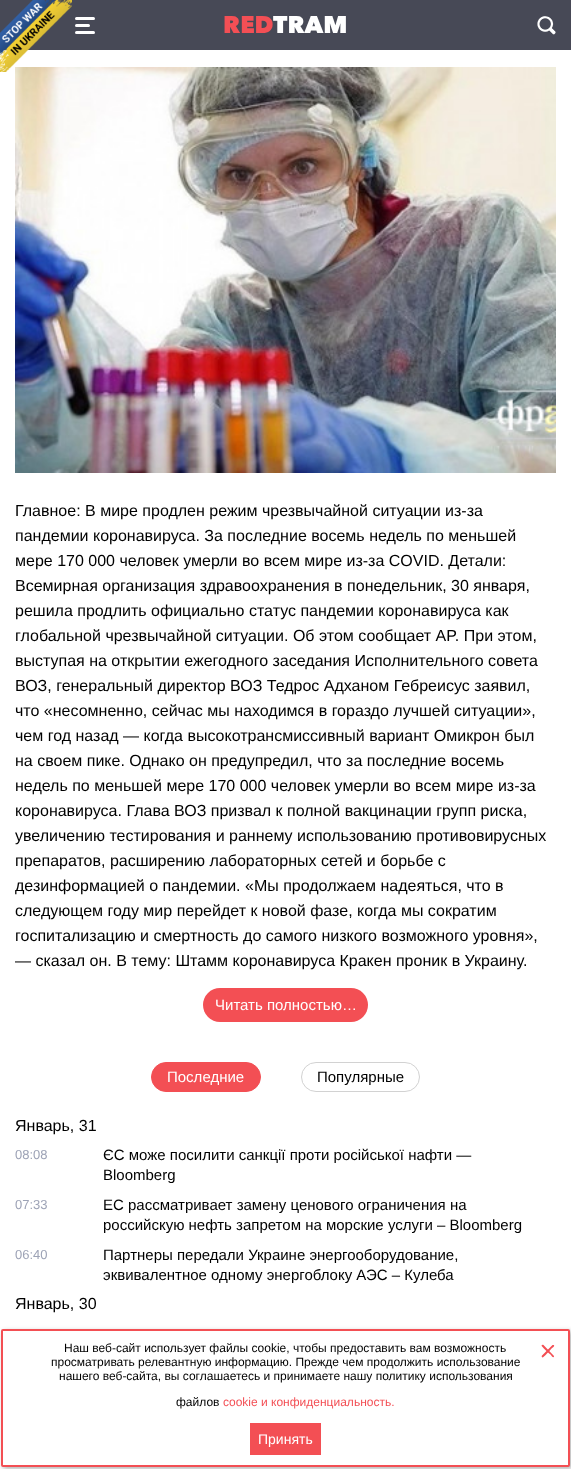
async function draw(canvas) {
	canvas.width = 571;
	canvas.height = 1469;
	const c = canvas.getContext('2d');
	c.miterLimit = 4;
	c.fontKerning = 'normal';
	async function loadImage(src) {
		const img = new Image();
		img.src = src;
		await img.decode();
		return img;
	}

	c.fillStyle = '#fff';
	c.fillRect(0, 0, 571, 1469);
	c.fillStyle = '#474956';
	c.fillRect(0, 0, 571, 50);
	c.drawImage(await loadImage('img3.png'), 15, 67, 541, 406);
	c.drawImage(await loadImage('img1.png'), 0, 0, 72, 72);
	c.fillStyle = '#fff';
	c.beginPath();
	c.roundRect(75, 24, 15, 3, 1.5);
	c.fill();
	c.beginPath();
	c.roundRect(75, 17, 20, 3, 1.5);
	c.fill();
	c.beginPath();
	c.roundRect(75, 31, 20, 3, 1.5);
	c.fill();
	c.font = '900 24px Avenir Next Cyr';
	c.fillStyle = '#f34f55';
	c.fillText('RED', 223, 33);
	c.fillStyle = '#fff';
	c.fillText('TRAM', 273, 33);
	c.drawImage(await loadImage('img2.png'), 537, 16, 19, 19);
	c.font = '16px Liberation Sans';
	c.fillStyle = '#000';
	for (const [text, x, y] of [
		['Главное: В мире продлен режим чрезвычайной ситуации из-за', 15, 516],
		['пандемии коронавируса. За последние восемь недель по меньшей', 15, 541],
		['мере 170 000 человек умерли во всем мире из-за COVID. Детали:', 15, 566],
		['Всемирная организация здравоохранения в понедельник, 30 января,', 15, 591],
		['решила продлить официально статус пандемии коронавируса как', 15, 616],
		['глобальной чрезвычайной ситуации. Об этом сообщает AP. При этом,', 15, 641],
		['выступая на открытии ежегодного заседания Исполнительного совета', 15, 666],
		['ВОЗ, генеральный директор ВОЗ Тедрос Адханом Гебреисус заявил,', 15, 691],
		['что «несомненно, сейчас мы находимся в гораздо лучшей ситуации»,', 15, 716],
		['чем год назад — когда высокотрансмиссивный вариант Омикрон был', 15, 741],
		['на своем пике. Однако он предупредил, что за последние восемь', 15, 766],
		['недель по меньшей мере 170 000 человек умерли во всем мире из-за', 15, 791],
		['коронавируса. Глава ВОЗ призвал к полной вакцинации групп риска,', 15, 816],
		['увеличению тестирования и раннему использованию противовирусных', 15, 841],
		['препаратов, расширению лабораторных сетей и борьбе с', 15, 866],
		['дезинформацией о пандемии. «Мы продолжаем надеяться, что в', 15, 891],
		['следующем году мир перейдет к новой фазе, когда мы сократим', 15, 916],
		['госпитализацию и смертность до самого низкого возможного уровня»,', 15, 941],
		['— сказал он. В тему: Штамм коронавируса Кракен проник в Украину.', 15, 966],
	]) {
		c.fillText(text, x, y);
	}
	c.fillStyle = '#f34f54';
	c.beginPath();
	c.roundRect(203, 988, 165, 34, 17);
	c.fill();
	c.font = '15px Liberation Sans';
	c.fillStyle = '#fff';
	c.fillText('Читать полностью…', 215, 1010);
	c.fillStyle = '#f34f54';
	c.beginPath();
	c.roundRect(151.5, 1062.5, 109, 29, 14.5);
	c.fill();
	c.strokeStyle = '#f34f54';
	c.stroke();
	c.fillStyle = '#fff';
	c.fillText('Последние', 167, 1082);
	c.beginPath();
	c.roundRect(301.5, 1062.5, 118, 29, 14.5);
	c.strokeStyle = '#d2d2d2';
	c.stroke();
	c.fillStyle = '#000';
	c.fillText('Популярные', 317, 1082);
	c.font = '16px Liberation Sans';
	c.fillText('Январь, 31', 15, 1131);
	c.font = '13px Liberation Sans';
	c.fillStyle = '#9da3b6';
	c.fillText('08:08', 15, 1159);
	c.font = '15px Liberation Sans';
	c.fillStyle = '#000';
	c.fillText('ЄС може посилити санкції проти російської нафти —', 103, 1160);
	c.fillText('Bloomberg', 103, 1180);
	c.font = '13px Liberation Sans';
	c.fillStyle = '#9da3b6';
	c.fillText('07:33', 15, 1209);
	c.font = '15px Liberation Sans';
	c.fillStyle = '#000';
	c.fillText('ЕС рассматривает замену ценового ограничения на', 103, 1210);
	c.fillText('российскую нефть запретом на морские услуги – Bloomberg', 103, 1230);
	c.font = '13px Liberation Sans';
	c.fillStyle = '#9da3b6';
	c.fillText('06:40', 15, 1259);
	c.font = '15px Liberation Sans';
	c.fillStyle = '#000';
	c.fillText('Партнеры передали Украине энергооборудование,', 103, 1260);
	c.fillText('эквивалентное одному энергоблоку АЭС – Кулеба', 103, 1280);
	c.font = '16px Liberation Sans';
	c.fillText('Январь, 30', 15, 1309);
	c.fillStyle = '#0000004d';
	c.filter = 'blur(2.5px)';
	c.beginPath();
	c.roundRect(3, 1331, 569, 138, 2);
	c.fill();
	c.filter = 'none';
	c.fillStyle = '#fff';
	c.beginPath();
	c.roundRect(2, 1330, 567, 136, 1);
	c.fill();
	c.strokeStyle = '#f34f54';
	c.lineWidth = 2;
	c.stroke();
	c.font = '12px Liberation Sans';
	c.fillStyle = '#000';
	for (const [text, x, y] of [
		['Наш веб-сайт использует файлы cookie, чтобы предоставить вам возможность', 64, 1352],
		['просматривать релевантную информацию. Прежде чем продолжить использование', 51, 1366],
		['нашего веб-сайта, вы соглашаетесь и принимаете нашу политику использования', 59, 1380],
		['файлов', 176, 1406],
	]) {
		c.fillText(text, x, y);
	}
	c.fillStyle = '#f34f55';
	c.fillText('cookie и конфиденциальность.', 223, 1406);
	c.fillStyle = '#f34f54';
	c.beginPath();
	c.moveTo(543.5, 1345);
	c.lineTo(554, 1356);
	c.lineTo(554, 1356.5);
	c.bezierCurveTo(553.5, 1358.5, 551, 1355.5, 551, 1355);
	c.bezierCurveTo(549.5, 1354, 541.5, 1346.5, 541.5, 1345.5);
	c.bezierCurveTo(542, 1344.5, 543, 1344.5, 543.5, 1345);
	c.closePath();
	c.fill();
	c.beginPath();
	c.moveTo(542, 1355.5);
	c.lineTo(552.5, 1345);
	c.lineTo(553.5, 1345);
	c.bezierCurveTo(555.5, 1345.5, 552.5, 1348, 552, 1348);
	c.bezierCurveTo(551, 1349.5, 543.5, 1357.5, 542.5, 1357.5);
	c.bezierCurveTo(541.5, 1357, 541.5, 1356, 542, 1355.5);
	c.closePath();
	c.fill();
	c.fillRect(250, 1423, 71, 32);
	c.font = '14px Liberation Sans';
	c.fillStyle = '#fff';
	c.fillText('Принять', 258, 1444);
}

draw(document.querySelector('canvas'));
